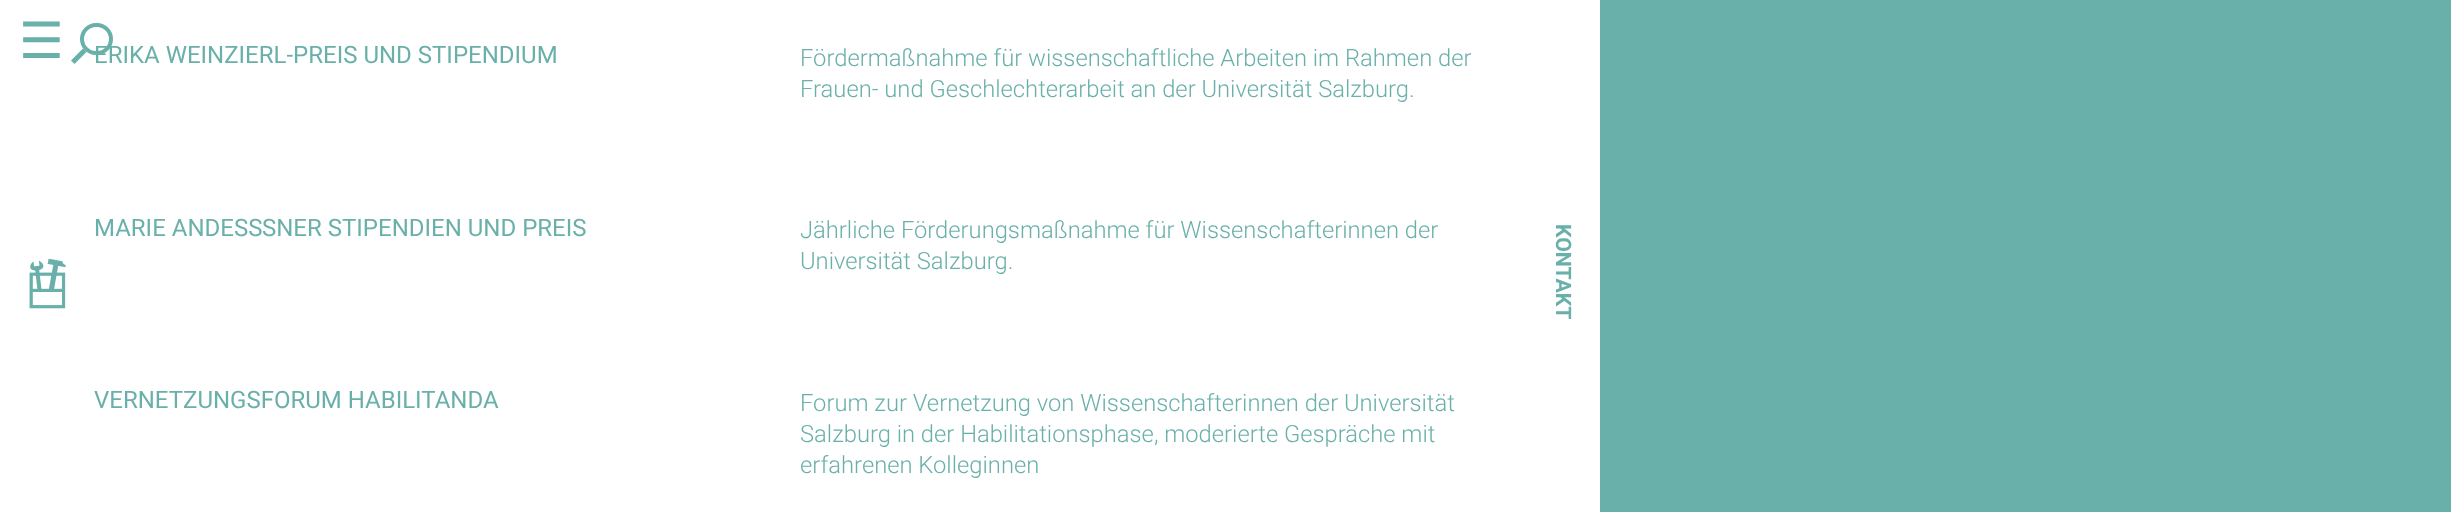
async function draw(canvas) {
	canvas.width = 2451;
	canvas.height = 512;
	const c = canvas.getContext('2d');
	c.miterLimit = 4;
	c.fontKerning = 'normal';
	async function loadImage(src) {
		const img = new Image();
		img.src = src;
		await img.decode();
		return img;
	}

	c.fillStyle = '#6ab0aa';
	c.fillRect(0, 0, 2451, 512);
	c.fillStyle = '#fff';
	c.fillRect(0, 0, 1600, 512);
	c.font = '50px DejaVu Sans';
	c.fillStyle = '#6ab0aa';
	c.fillText('☰', 19, 58);
	c.drawImage(await loadImage('img1.png'), 29, 258, 37, 51);
	c.beginPath();
	c.roundRect(82, 25, 29, 28, 14);
	c.strokeStyle = '#6ab0aa';
	c.lineWidth = 4;
	c.stroke();
	c.beginPath();
	c.moveTo(71, 60.5);
	c.lineTo(83, 48.5);
	c.lineTo(86.5, 52);
	c.lineTo(74.5, 64);
	c.closePath();
	c.fill();
	c.font = '24px Roboto';
	c.fillText('ERIKA WEINZIERL-PREIS UND STIPENDIUM', 94, 63);
	c.font = '300 23.75px Roboto';
	c.fillText('Fördermaßnahme für wissenschaftliche Arbeiten im Rahmen der', 800, 66);
	c.fillText('Frauen- und Geschlechterarbeit an der Universität Salzburg.', 800, 97);
	c.font = '24px Roboto';
	c.fillText('MARIE ANDESS', 94, 236);
	c.fillText('SNER STIPENDIEN UND PREIS', 262, 236);
	c.font = '300 23.75px Roboto';
	c.fillText('Jährliche Förderungsmaßnahme für Wissenschafterinnen der', 800, 238);
	c.fillText('Universität Salzburg.', 800, 269);
	c.font = '24px Roboto';
	c.fillText('VERNETZUNGSFORUM HABILITANDA', 94, 408);
	c.font = '300 23.75px Roboto';
	for (const [text, x, y] of [
		['Forum zur Vernetzung von Wissenschafterinnen der Universität', 800, 411],
		['Salzburg in der Habilitationsphase, moderierte Gespräche mit', 800, 442],
		['erfahrenen Kolleginnen', 800, 473],
	]) {
		c.fillText(text, x, y);
	}
	c.font = 'bold 21.25px Roboto';
	c.save();
	c.translate(1556, 224);
	c.rotate(90 * Math.PI / 180);
	c.fillText('KONTAKT', 0, 0);
	c.restore();
}

draw(document.querySelector('canvas'));
